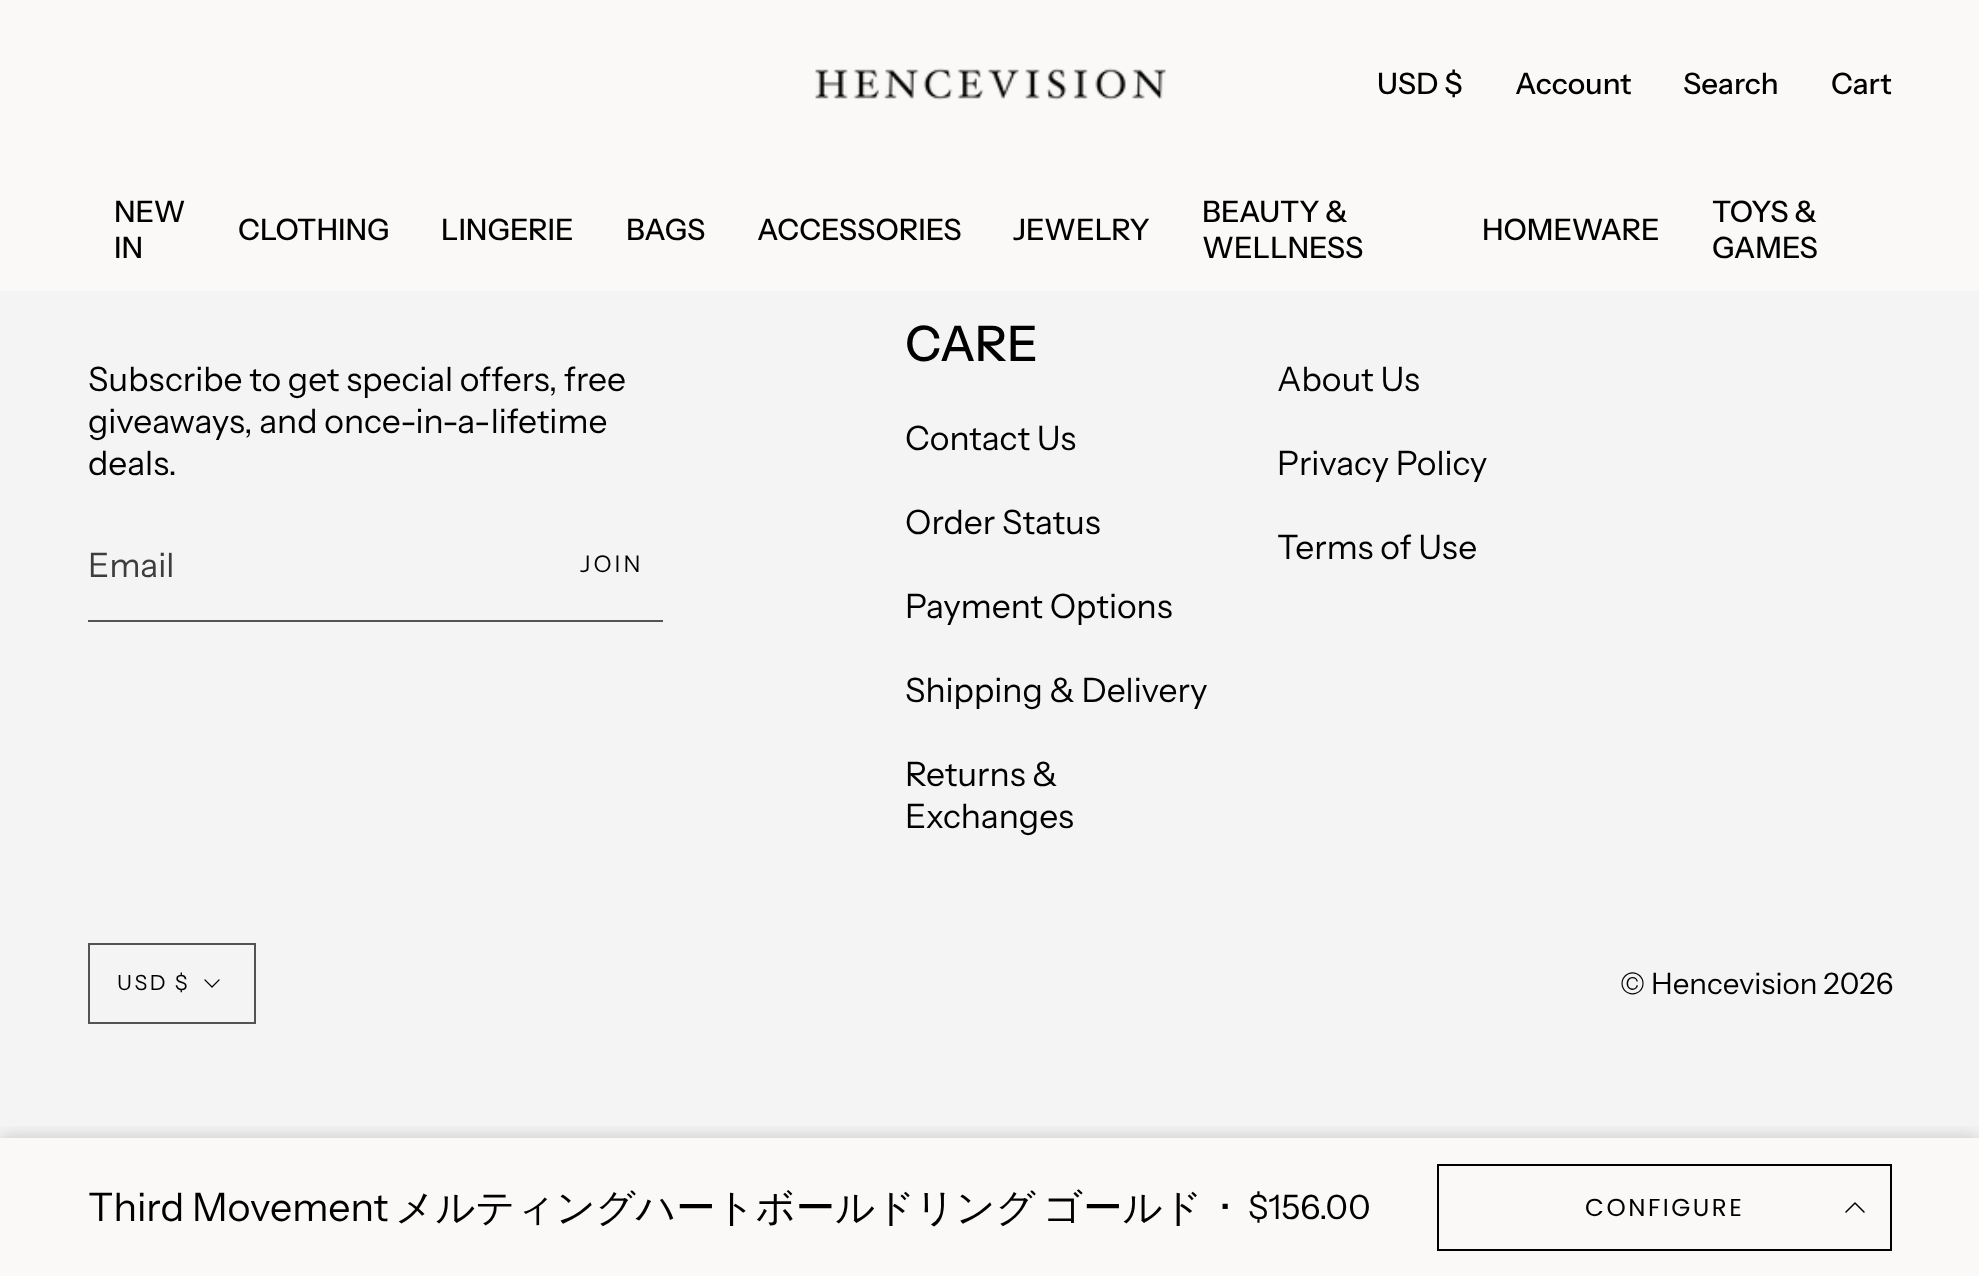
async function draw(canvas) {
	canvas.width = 1979;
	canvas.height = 1276;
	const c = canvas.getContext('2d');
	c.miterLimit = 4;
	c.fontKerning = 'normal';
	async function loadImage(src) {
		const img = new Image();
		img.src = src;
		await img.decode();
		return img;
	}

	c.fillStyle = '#faf9f8';
	c.fillRect(0, 0, 1979, 1276);
	c.drawImage(await loadImage('img1.png'), 815, 68, 351, 32);
	c.font = '500 29.5px Instrument Sans';
	c.fillStyle = '#000';
	for (const [text, x, y] of [
		['USD $', 1377, 94],
		['Account', 1515, 94],
		['Search', 1683, 94],
		['Cart', 1831, 94],
		['NEW', 114, 222],
		['IN', 114, 258],
		['CLOTHING', 238, 240],
		['LINGERIE', 441, 240],
		['BAGS', 626, 240],
		['ACCESSORIES', 757, 240],
		['JEWELRY', 1013, 240],
		['BEAUTY &', 1202, 222],
		['WELLNESS', 1202, 258],
		['HOMEWARE', 1482, 240],
		['TOYS &', 1712, 222],
		['GAMES', 1712, 258],
	]) {
		c.fillText(text, x, y);
	}
	c.fillStyle = '#f4f4f4';
	c.fillRect(0, 291, 1979, 847);
	c.save();
	c.beginPath();
	c.rect(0, 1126, 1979, 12);
	c.clip();
	c.fillStyle = '#00000033';
	c.filter = 'blur(9px)';
	c.beginPath();
	c.rect(0, 1138, 1979, 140);
	c.fill();
	c.filter = 'none';
	c.restore();
	c.font = '39.25px Instrument Sans';
	c.fillStyle = '#000';
	c.fillText('Third Movement', 88, 1221);
	c.font = '500 39.25px WenQuanYi Zen Hei';
	c.fillText('メルティングハートボールドリング', 395, 1221);
	c.fillText('ゴールド', 1043, 1221);
	c.font = '33.6px Instrument Sans';
	c.fillText('•', 1220, 1219);
	c.fillText('$156.00', 1248, 1219);
	c.strokeStyle = '#000';
	c.lineWidth = 2;
	c.strokeRect(1438, 1165, 453, 85);
	c.letterSpacing = '2.5px';
	c.font = '24.5px Poppins';
	c.fillText('CONFIGURE', 1585, 1216);
	c.beginPath();
	c.moveTo(1846, 1212);
	c.lineTo(1855, 1203);
	c.lineTo(1864, 1212);
	c.lineWidth = 1.5;
	c.lineCap = 'round';
	c.lineJoin = 'round';
	c.stroke();
	c.letterSpacing = '0px';
	c.font = '33.6px Instrument Sans';
	for (const [text, x, y] of [
		['Subscribe to get special offers, free', 88, 391],
		['giveaways, and once-in-a-lifetime', 88, 433],
		['deals.', 88, 475],
	]) {
		c.fillText(text, x, y);
	}
	c.fillStyle = '#535353';
	c.fillRect(88, 620, 575, 2);
	c.fillStyle = '#3d3d3d';
	c.fillText('Email', 88, 577);
	c.letterSpacing = '3px';
	c.font = '23px Instrument Sans';
	c.fillStyle = '#000';
	c.fillText('JOIN', 580, 572);
	c.letterSpacing = '0px';
	c.font = '500 49px Instrument Sans';
	c.fillText('CARE', 905, 361);
	c.font = '33.6px Instrument Sans';
	for (const [text, x, y] of [
		['Contact Us', 905, 450],
		['Order Status', 905, 534],
		['Payment Options', 905, 618],
		['Shipping & Delivery', 905, 702],
		['Returns &', 905, 786],
		['Exchanges', 905, 828],
		['About Us', 1277, 391],
		['Privacy Policy', 1277, 475],
		['Terms of Use', 1277, 559],
	]) {
		c.fillText(text, x, y);
	}
	c.strokeStyle = '#535353';
	c.lineWidth = 2;
	c.lineJoin = 'miter';
	c.strokeRect(89, 944, 166, 79);
	c.letterSpacing = '2.5px';
	c.font = '21px Instrument Sans';
	c.fillText('USD $', 117, 990);
	c.beginPath();
	c.moveTo(205, 980);
	c.lineTo(212, 987);
	c.lineTo(219, 980);
	c.strokeStyle = '#000';
	c.lineWidth = 1.2;
	c.lineJoin = 'round';
	c.stroke();
	c.letterSpacing = '0px';
	c.font = '29.5px Instrument Sans';
	c.fillText('© Hencevision 2026', 1620, 994);
}

draw(document.querySelector('canvas'));
